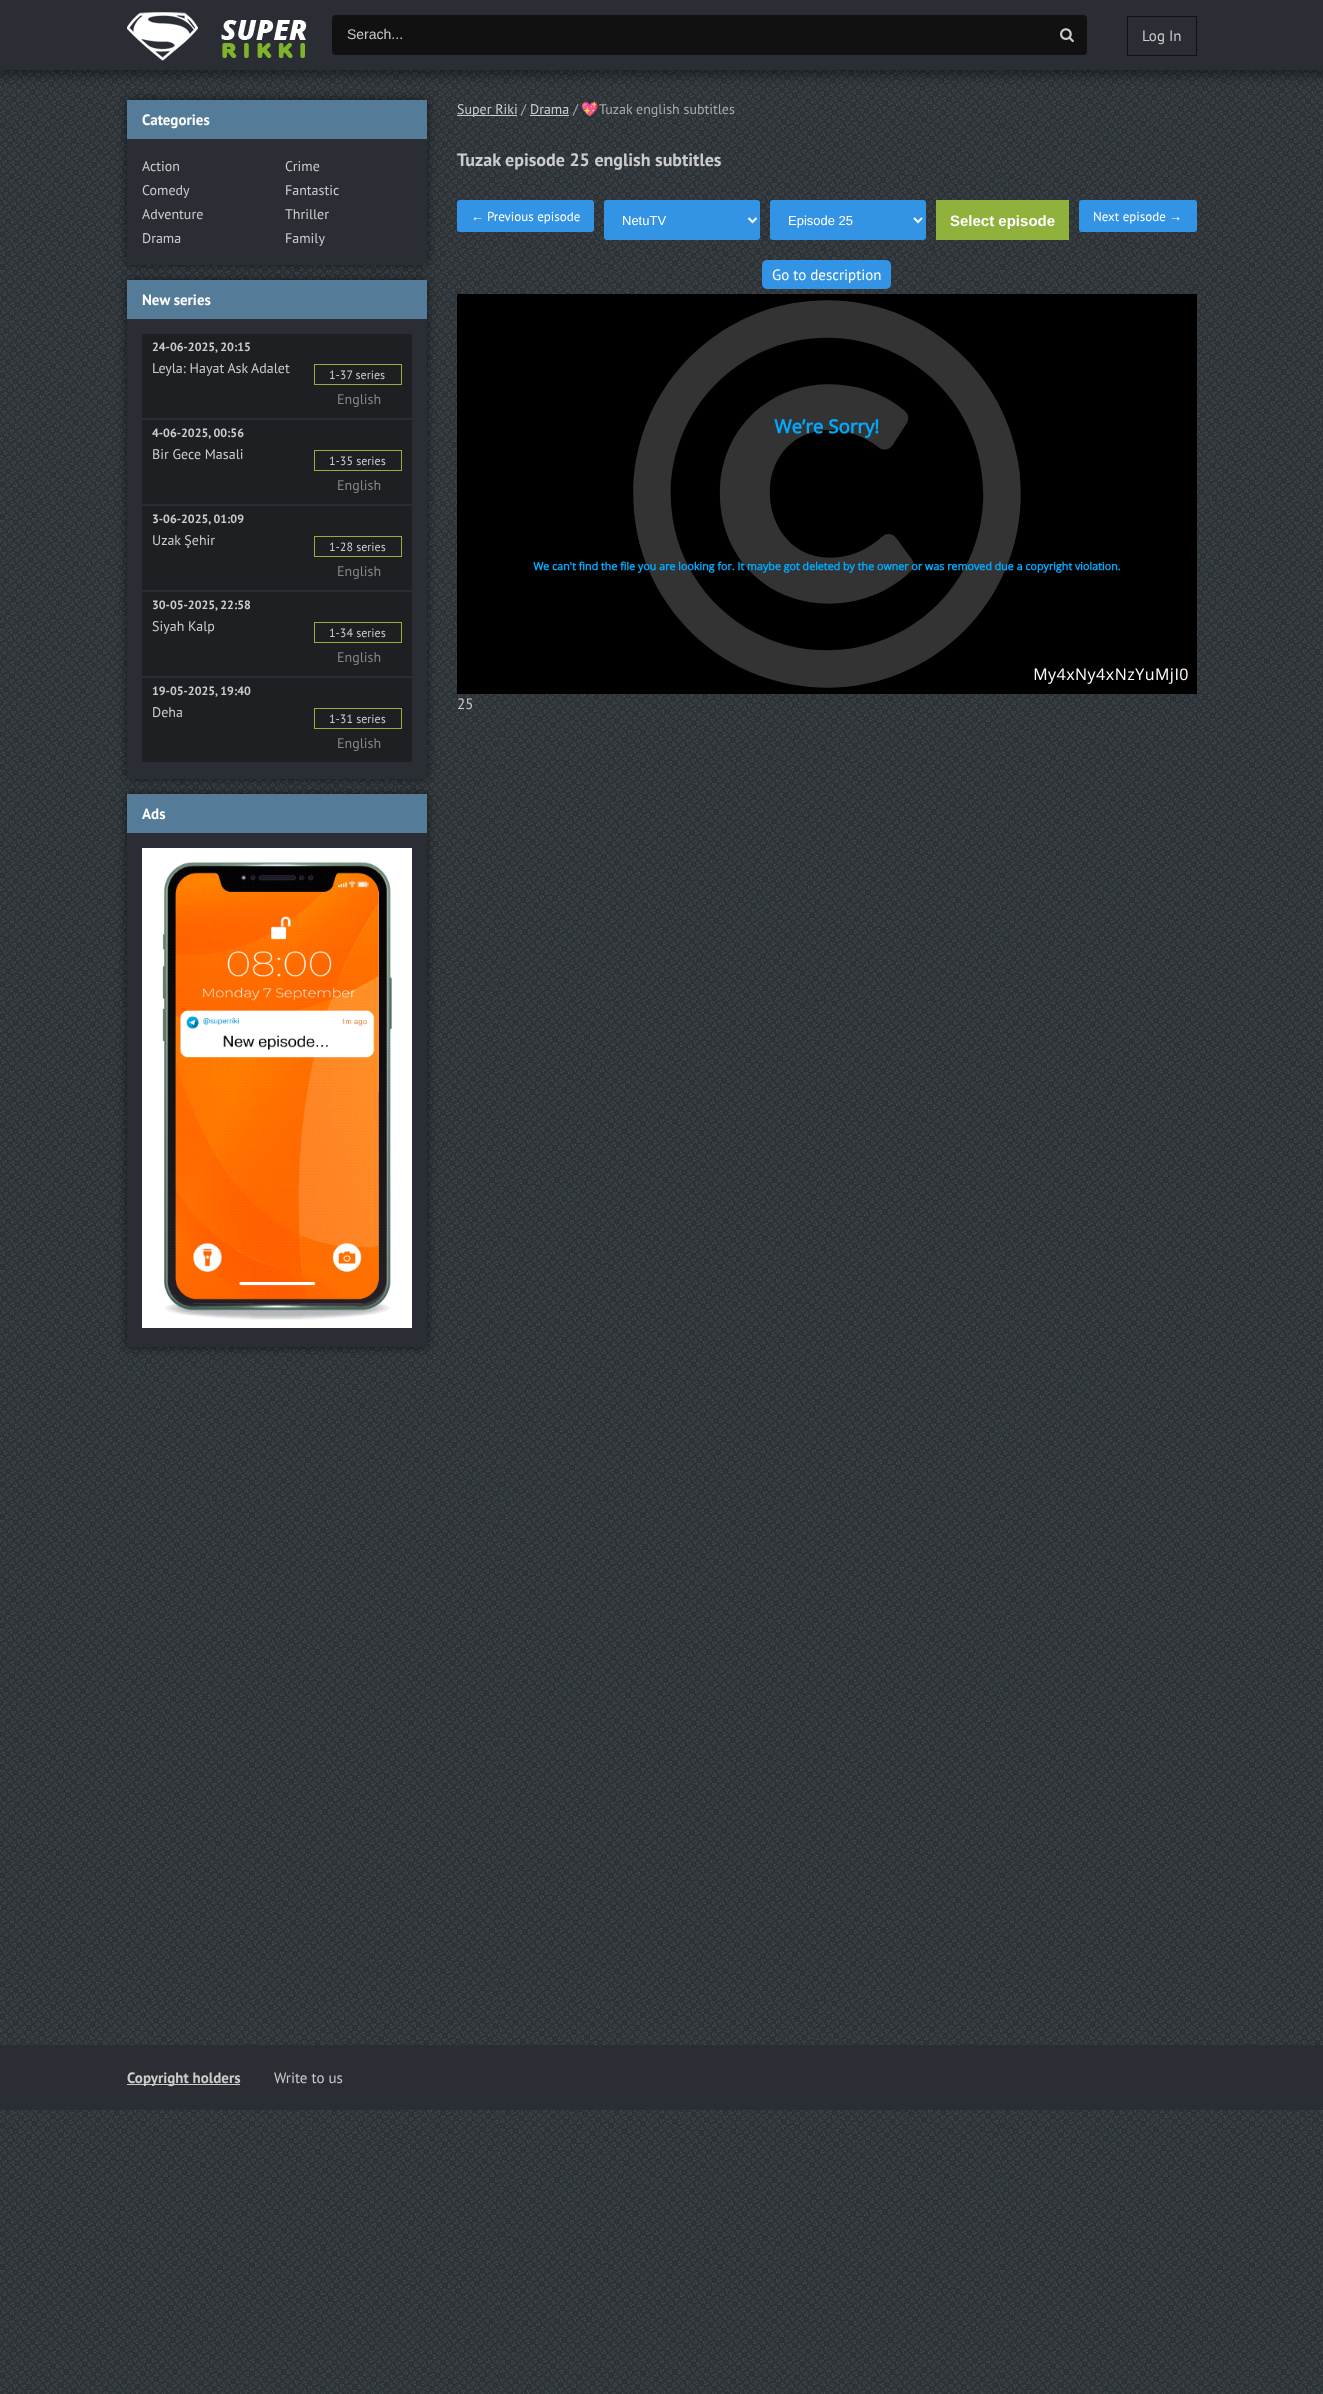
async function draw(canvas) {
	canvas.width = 1323;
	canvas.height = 2394;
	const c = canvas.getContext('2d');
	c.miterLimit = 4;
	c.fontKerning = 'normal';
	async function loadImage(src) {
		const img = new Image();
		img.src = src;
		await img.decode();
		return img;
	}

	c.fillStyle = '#fff';
	c.fillRect(0, 0, 1323, 2394);
	c.drawImage(await loadImage('img1.png'), 0, 70, 1323, 2324);
	c.fillStyle = '#00000066';
	c.filter = 'blur(5.5px)';
	c.beginPath();
	c.rect(-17, 5, 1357, 70);
	c.fill();
	c.filter = 'none';
	c.fillStyle = '#2a2d34';
	c.fillRect(0, 0, 1323, 70);
	c.drawImage(await loadImage('img2.png'), 127, 12, 180, 49);
	c.fillStyle = '#111';
	c.beginPath();
	c.roundRect(332, 15, 755, 40, 4);
	c.fill();
	c.font = '14px Liberation Sans';
	c.fillStyle = '#ccc';
	c.fillText('Serach...', 347, 39);
	c.drawImage(await loadImage('img3.png'), 1060, 28, 14, 15);
	c.strokeStyle = '#111';
	c.strokeRect(1127.5, 16.5, 69, 39);
	c.font = '15px PT Sans';
	c.fillText('Log In', 1142, 41);
	c.fillStyle = '#00000099';
	c.filter = 'blur(5px)';
	c.beginPath();
	c.rect(127, 100, 300, 165);
	c.fill();
	c.filter = 'none';
	c.fillStyle = '#2a2d34';
	c.fillRect(127, 139, 300, 126);
	c.fillStyle = '#547b97';
	c.fillRect(127, 100, 300, 39);
	c.font = 'bold 15px PT Sans';
	c.fillStyle = '#fff';
	c.fillText('Categories', 142, 125);
	c.font = '14px PT Sans';
	c.fillStyle = '#ccc';
	for (const [text, x, y] of [
		['Action', 142, 171],
		['Crime', 285, 171],
		['Comedy', 142, 195],
		['Fantastic', 285, 195],
		['Adventure', 142, 219],
		['Thriller', 285, 219],
		['Drama', 142, 243],
		['Family', 285, 243],
	]) {
		c.fillText(text, x, y);
	}
	c.fillStyle = '#00000099';
	c.filter = 'blur(5px)';
	c.beginPath();
	c.rect(127, 280, 300, 499);
	c.fill();
	c.filter = 'none';
	c.fillStyle = '#2a2d34';
	c.fillRect(127, 319, 300, 460);
	c.fillStyle = '#547b97';
	c.fillRect(127, 280, 300, 39);
	c.font = 'bold 15px PT Sans';
	c.fillStyle = '#fff';
	c.fillText('New series', 142, 305);
	c.fillStyle = '#1e1f23';
	c.fillRect(142, 334, 270, 84);
	c.font = 'bold 12px PT Sans';
	c.fillStyle = '#ccc';
	c.fillText('24-06-2025, 20:15', 152, 351);
	c.font = '14px PT Sans';
	c.fillText('Leyla: Hayat Ask Adalet', 152, 373);
	c.strokeStyle = '#90b23d';
	c.strokeRect(314.5, 364.5, 87, 20);
	c.font = '12px PT Sans';
	c.fillText('1-37 series', 329, 379);
	c.font = '14px PT Sans';
	c.fillStyle = '#868788';
	c.fillText('English', 337, 404);
	c.fillStyle = '#1e1f23';
	c.fillRect(142, 420, 270, 84);
	c.font = 'bold 12px PT Sans';
	c.fillStyle = '#ccc';
	c.fillText('4-06-2025, 00:56', 152, 437);
	c.font = '14px PT Sans';
	c.fillText('Bir Gece Masali', 152, 459);
	c.strokeRect(314.5, 450.5, 87, 20);
	c.font = '12px PT Sans';
	c.fillText('1-35 series', 329, 465);
	c.font = '14px PT Sans';
	c.fillStyle = '#868788';
	c.fillText('English', 337, 490);
	c.fillStyle = '#1e1f23';
	c.fillRect(142, 506, 270, 84);
	c.font = 'bold 12px PT Sans';
	c.fillStyle = '#ccc';
	c.fillText('3-06-2025, 01:09', 152, 523);
	c.font = '14px PT Sans';
	c.fillText('Uzak Şehir', 152, 545);
	c.strokeRect(314.5, 536.5, 87, 20);
	c.font = '12px PT Sans';
	c.fillText('1-28 series', 329, 551);
	c.font = '14px PT Sans';
	c.fillStyle = '#868788';
	c.fillText('English', 337, 576);
	c.fillStyle = '#1e1f23';
	c.fillRect(142, 592, 270, 84);
	c.font = 'bold 12px PT Sans';
	c.fillStyle = '#ccc';
	c.fillText('30-05-2025, 22:58', 152, 609);
	c.font = '14px PT Sans';
	c.fillText('Siyah Kalp', 152, 631);
	c.strokeRect(314.5, 622.5, 87, 20);
	c.font = '12px PT Sans';
	c.fillText('1-34 series', 329, 637);
	c.font = '14px PT Sans';
	c.fillStyle = '#868788';
	c.fillText('English', 337, 662);
	c.fillStyle = '#1e1f23';
	c.fillRect(142, 678, 270, 84);
	c.font = 'bold 12px PT Sans';
	c.fillStyle = '#ccc';
	c.fillText('19-05-2025, 19:40', 152, 695);
	c.font = '14px PT Sans';
	c.fillText('Deha', 152, 717);
	c.strokeRect(314.5, 708.5, 87, 20);
	c.font = '12px PT Sans';
	c.fillText('1-31 series', 329, 723);
	c.font = '14px PT Sans';
	c.fillStyle = '#868788';
	c.fillText('English', 337, 748);
	c.fillStyle = '#00000099';
	c.filter = 'blur(5px)';
	c.beginPath();
	c.rect(127, 794, 300, 553);
	c.fill();
	c.filter = 'none';
	c.fillStyle = '#2a2d34';
	c.fillRect(127, 833, 300, 514);
	c.fillStyle = '#547b97';
	c.fillRect(127, 794, 300, 39);
	c.font = 'bold 15px PT Sans';
	c.fillStyle = '#fff';
	c.fillText('Ads', 142, 819);
	c.drawImage(await loadImage('img4.png'), 142, 848, 270, 480);
	c.fillStyle = '#ccc';
	c.fillRect(457, 115, 60, 1);
	c.font = '14px PT Sans';
	c.fillText('Super Riki', 457, 114);
	c.fillStyle = '#aaa';
	c.fillText('/', 521, 114);
	c.fillStyle = '#ccc';
	c.fillText('Drama', 530, 114);
	c.fillRect(530, 115, 39, 1);
	c.fillStyle = '#aaa';
	c.fillText('/', 573, 114);
	c.font = '14px Noto Color Emoji';
	c.fillText('💖', 581, 114);
	c.font = '14px PT Sans';
	c.fillText('Tuzak english subtitles', 599, 114);
	c.font = 'bold 18px PT Sans';
	c.fillStyle = '#ccc';
	c.fillText('Tuzak episode 25 english subtitles', 457, 166);
	c.fillStyle = '#3394e6';
	c.beginPath();
	c.roundRect(457, 200, 137, 32, 3);
	c.fill();
	c.font = '13px Liberation Sans';
	c.fillStyle = '#fff';
	c.fillText('←', 471, 221);
	c.font = '13px PT Sans';
	c.fillText('Previous episode', 487, 221);
	c.fillStyle = '#3394e6';
	c.beginPath();
	c.roundRect(604, 200, 156, 40, 3);
	c.fill();
	c.beginPath();
	c.moveTo(748.5, 218);
	c.lineTo(752.5, 222);
	c.lineTo(756.5, 218);
	c.strokeStyle = '#fff';
	c.lineWidth = 2;
	c.stroke();
	c.font = '13px Liberation Sans';
	c.fillStyle = '#fff';
	c.fillText('NetuTV', 622, 225);
	c.fillStyle = '#3394e6';
	c.beginPath();
	c.roundRect(770, 200, 156, 40, 3);
	c.fill();
	c.beginPath();
	c.moveTo(914, 218);
	c.lineTo(918, 222);
	c.lineTo(922, 218);
	c.stroke();
	c.fillStyle = '#fff';
	c.fillText('Episode 25', 788, 225);
	c.fillStyle = '#90b23d';
	c.fillRect(936, 200, 133, 40);
	c.font = 'bold 15px Liberation Sans';
	c.fillStyle = '#fff';
	c.fillText('Select episode', 950, 226);
	c.fillStyle = '#3394e6';
	c.beginPath();
	c.roundRect(1079, 200, 118, 32, 3);
	c.fill();
	c.font = '13px PT Sans';
	c.fillStyle = '#fff';
	c.fillText('Next episode', 1093, 221);
	c.font = '13px Liberation Sans';
	c.fillText('→', 1169, 221);
	c.fillStyle = '#3394e6';
	c.beginPath();
	c.roundRect(762, 260, 129, 29, 5);
	c.fill();
	c.font = '15px PT Sans';
	c.fillStyle = '#fff';
	c.fillText('Go to description', 772, 280);
	c.drawImage(await loadImage('img5.png'), 457, 294, 740, 400);
	c.fillStyle = '#ccc';
	c.fillText('25', 457, 709);
	c.fillStyle = '#2a2d34';
	c.fillRect(0, 2045, 1323, 65);
	c.fillStyle = '#ccc';
	c.fillRect(127, 2084, 113, 1);
	c.font = 'bold 15px PT Sans';
	c.fillText('Copyright holders', 127, 2083);
	c.font = '15px PT Sans';
	c.fillText('Write to us', 274, 2083);
}

draw(document.querySelector('canvas'));
